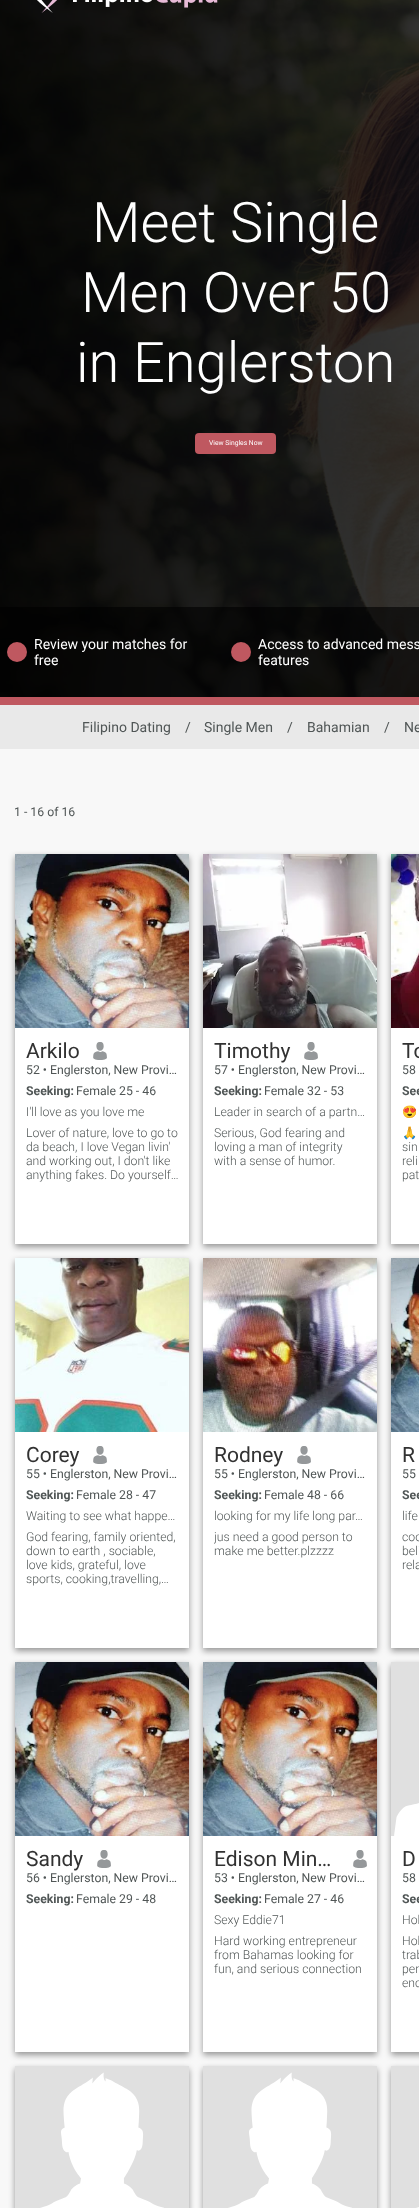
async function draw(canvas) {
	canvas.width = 419;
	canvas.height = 2208;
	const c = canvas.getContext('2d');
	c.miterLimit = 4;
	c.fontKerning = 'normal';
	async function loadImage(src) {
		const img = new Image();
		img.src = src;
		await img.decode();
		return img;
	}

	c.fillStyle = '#f8f8f8';
	c.fillRect(0, 0, 419, 2208);
	c.drawImage(await loadImage('img3.png'), 0, 0, 419, 697);
	c.drawImage(await loadImage('img1.png'), 37, 0, 20, 13);
	c.drawImage(await loadImage('img2.png'), 73, 0, 145, 8);
	c.font = '300 56px Roboto';
	c.fillStyle = '#fff';
	for (const [text, x, y] of [
		['Meet Single', 92, 242],
		['Men Over 50', 81, 312],
		['in Englerston', 76, 382],
	]) {
		c.fillText(text, x, y);
	}
	c.fillStyle = '#bf5860';
	c.beginPath();
	c.roundRect(195, 433, 81, 21, 4);
	c.fill();
	c.font = '6.75px Roboto';
	c.fillStyle = '#fff';
	c.fillText('View Singles Now', 209, 445);
	c.fillStyle = '#00000099';
	c.fillRect(0, 607, 419, 90);
	c.fillStyle = '#bf5860';
	c.beginPath();
	c.arc(17, 652, 10, 0, 2 * Math.PI);
	c.fill();
	c.font = '14px Roboto';
	c.fillStyle = '#fff';
	c.fillText('Review your matches for', 34, 649);
	c.fillText('free', 34, 665);
	c.fillStyle = '#bf5860';
	c.beginPath();
	c.arc(241, 652, 10, 0, 2 * Math.PI);
	c.fill();
	c.fillStyle = '#fff';
	c.fillText('Access to advanced mess', 258, 649);
	c.fillText('features', 258, 665);
	c.fillStyle = '#bf5860';
	c.fillRect(0, 697, 419, 8);
	c.fillStyle = '#e9e9e9';
	c.fillRect(0, 705, 419, 44);
	c.fillStyle = '#505656';
	for (const [text, x, y] of [
		['Filipino Dating', 82, 732],
		['/', 185, 732],
		['Single Men', 204, 732],
		['/', 287, 732],
		['Bahamian', 307, 732],
		['/', 384, 732],
		['Ne', 404, 732],
	]) {
		c.fillText(text, x, y);
	}
	c.font = '12.25px Roboto';
	c.fillText('1 - 16 of 16', 14, 816);
	c.fillStyle = '#00000066';
	c.filter = 'blur(3px)';
	c.beginPath();
	c.rect(15, 857, 174, 390);
	c.fill();
	c.filter = 'none';
	c.fillStyle = '#fff';
	c.fillRect(15, 1028, 174, 216);
	c.drawImage(await loadImage('img4.png'), 15, 854, 174, 174);
	c.font = '21px Roboto';
	c.fillStyle = '#323232';
	c.fillText('Arkilo', 26, 1058);
	c.drawImage(await loadImage('img5.png'), 93, 1042, 14, 18);
	c.font = '12.25px Roboto';
	c.fillStyle = '#505656';
	c.fillText('52 • Englerston, New Provi…', 26, 1074);
	c.font = 'bold 12.25px Roboto';
	c.fillText('Seeking:', 26, 1095);
	c.font = '12.25px Roboto';
	c.fillText('Female 25 - 46', 76, 1095);
	c.font = '300 12.25px Roboto';
	for (const [text, x, y] of [
		['I\'ll love as you love me', 26, 1116],
		['Lover of nature, love to go to', 26, 1137],
		['da beach, I love Vegan livin\'', 26, 1151],
		['and working out, I don\'t like', 26, 1165],
		['anything fakes. Do yourself…', 26, 1179],
	]) {
		c.fillText(text, x, y);
	}
	c.fillStyle = '#00000066';
	c.filter = 'blur(3px)';
	c.beginPath();
	c.rect(203, 857, 174, 390);
	c.fill();
	c.filter = 'none';
	c.fillStyle = '#fff';
	c.fillRect(203, 1028, 174, 216);
	c.drawImage(await loadImage('img6.png'), 203, 854, 174, 174);
	c.font = '21px Roboto';
	c.fillStyle = '#323232';
	c.fillText('Timothy', 214, 1058);
	c.drawImage(await loadImage('img5.png'), 304, 1042, 14, 18);
	c.font = '12.25px Roboto';
	c.fillStyle = '#505656';
	c.fillText('57 • Englerston, New Provi…', 214, 1074);
	c.font = 'bold 12.25px Roboto';
	c.fillText('Seeking:', 214, 1095);
	c.font = '12.25px Roboto';
	c.fillText('Female 32 - 53', 264, 1095);
	c.font = '300 12.25px Roboto';
	for (const [text, x, y] of [
		['Leader in search of a partn…', 214, 1116],
		['Serious, God fearing and', 214, 1137],
		['loving a man of integrity', 214, 1151],
		['with a sense of humor.', 214, 1165],
	]) {
		c.fillText(text, x, y);
	}
	c.fillStyle = '#00000066';
	c.filter = 'blur(3px)';
	c.beginPath();
	c.rect(391, 857, 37, 390);
	c.fill();
	c.filter = 'none';
	c.fillStyle = '#fff';
	c.fillRect(391, 1028, 28, 216);
	c.drawImage(await loadImage('img7.png'), 391, 854, 28, 174);
	c.font = '21px Roboto';
	c.fillStyle = '#323232';
	c.fillText('To', 402, 1058);
	c.font = '12.25px Roboto';
	c.fillStyle = '#505656';
	c.fillText('58', 402, 1074);
	c.font = 'bold 12.25px Roboto';
	c.fillText('See', 402, 1095);
	c.save();
	c.beginPath();
	c.rect(402, 1105, 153, 14);
	c.clip();
	c.font = '12.25px Noto Color Emoji';
	c.fillText('😍', 402, 1116);
	c.restore();
	c.save();
	c.beginPath();
	c.rect(402, 1126, 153, 56);
	c.clip();
	c.font = '12.25px Noto Color Emoji';
	c.fillText('🙏', 402, 1137);
	c.restore();
	c.font = '300 12.25px Roboto';
	for (const [text, x, y] of [
		['sin', 402, 1151],
		['reli', 402, 1165],
		['pat', 402, 1179],
	]) {
		c.fillText(text, x, y);
	}
	c.fillStyle = '#00000066';
	c.filter = 'blur(3px)';
	c.beginPath();
	c.rect(15, 1261, 174, 390);
	c.fill();
	c.filter = 'none';
	c.fillStyle = '#fff';
	c.fillRect(15, 1432, 174, 216);
	c.drawImage(await loadImage('img8.png'), 15, 1258, 174, 174);
	c.font = '21px Roboto';
	c.fillStyle = '#323232';
	c.fillText('Corey', 26, 1462);
	c.drawImage(await loadImage('img5.png'), 93, 1446, 14, 18);
	c.font = '12.25px Roboto';
	c.fillStyle = '#505656';
	c.fillText('55 • Englerston, New Provi…', 26, 1478);
	c.font = 'bold 12.25px Roboto';
	c.fillText('Seeking:', 26, 1499);
	c.font = '12.25px Roboto';
	c.fillText('Female 28 - 47', 76, 1499);
	c.font = '300 12.25px Roboto';
	for (const [text, x, y] of [
		['Waiting to see what happe…', 26, 1520],
		['God fearing, family oriented,', 26, 1541],
		['down to earth , sociable,', 26, 1555],
		['love kids, grateful, love', 26, 1569],
		['sports, cooking,travelling,…', 26, 1583],
	]) {
		c.fillText(text, x, y);
	}
	c.fillStyle = '#00000066';
	c.filter = 'blur(3px)';
	c.beginPath();
	c.rect(203, 1261, 174, 390);
	c.fill();
	c.filter = 'none';
	c.fillStyle = '#fff';
	c.fillRect(203, 1432, 174, 216);
	c.drawImage(await loadImage('img9.png'), 203, 1258, 174, 174);
	c.font = '21px Roboto';
	c.fillStyle = '#323232';
	c.fillText('Rodney', 214, 1462);
	c.drawImage(await loadImage('img5.png'), 297, 1446, 14, 18);
	c.font = '12.25px Roboto';
	c.fillStyle = '#505656';
	c.fillText('55 • Englerston, New Provi…', 214, 1478);
	c.font = 'bold 12.25px Roboto';
	c.fillText('Seeking:', 214, 1499);
	c.font = '12.25px Roboto';
	c.fillText('Female 48 - 66', 264, 1499);
	c.font = '300 12.25px Roboto';
	c.fillText('looking for my life long par…', 214, 1520);
	c.save();
	c.beginPath();
	c.rect(214, 1530, 153, 28);
	c.clip();
	c.fillText('jus need a good person to', 214, 1541);
	c.restore();
	c.fillText('make me better.plzzzz', 214, 1555);
	c.fillStyle = '#00000066';
	c.filter = 'blur(3px)';
	c.beginPath();
	c.rect(391, 1261, 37, 390);
	c.fill();
	c.filter = 'none';
	c.fillStyle = '#fff';
	c.fillRect(391, 1432, 28, 216);
	c.drawImage(await loadImage('img10.png'), 391, 1258, 28, 174);
	c.font = '21px Roboto';
	c.fillStyle = '#323232';
	c.fillText('R', 402, 1462);
	c.font = '12.25px Roboto';
	c.fillStyle = '#505656';
	c.fillText('55', 402, 1478);
	c.font = 'bold 12.25px Roboto';
	c.fillText('See', 402, 1499);
	c.font = '300 12.25px Roboto';
	for (const [text, x, y] of [
		['life', 402, 1520],
		['coo', 402, 1541],
		['beli', 402, 1555],
		['rela', 402, 1569],
	]) {
		c.fillText(text, x, y);
	}
	c.fillStyle = '#00000066';
	c.filter = 'blur(3px)';
	c.beginPath();
	c.rect(15, 1665, 174, 390);
	c.fill();
	c.filter = 'none';
	c.fillStyle = '#fff';
	c.fillRect(15, 1836, 174, 216);
	c.drawImage(await loadImage('img4.png'), 15, 1662, 174, 174);
	c.font = '21px Roboto';
	c.fillStyle = '#323232';
	c.fillText('Sandy', 26, 1866);
	c.drawImage(await loadImage('img5.png'), 97, 1850, 14, 18);
	c.font = '12.25px Roboto';
	c.fillStyle = '#505656';
	c.fillText('56 • Englerston, New Provi…', 26, 1882);
	c.font = 'bold 12.25px Roboto';
	c.fillText('Seeking:', 26, 1903);
	c.font = '12.25px Roboto';
	c.fillText('Female 29 - 48', 76, 1903);
	c.fillStyle = '#00000066';
	c.filter = 'blur(3px)';
	c.beginPath();
	c.rect(203, 1665, 174, 390);
	c.fill();
	c.filter = 'none';
	c.fillStyle = '#fff';
	c.fillRect(203, 1836, 174, 216);
	c.drawImage(await loadImage('img11.png'), 203, 1662, 174, 174);
	c.font = '21px Roboto';
	c.fillStyle = '#323232';
	c.fillText('Edison Min…', 214, 1866);
	c.drawImage(await loadImage('img5.png'), 353, 1850, 14, 18);
	c.font = '12.25px Roboto';
	c.fillStyle = '#505656';
	c.fillText('53 • Englerston, New Provi…', 214, 1882);
	c.font = 'bold 12.25px Roboto';
	c.fillText('Seeking:', 214, 1903);
	c.font = '12.25px Roboto';
	c.fillText('Female 27 - 46', 264, 1903);
	c.font = '300 12.25px Roboto';
	for (const [text, x, y] of [
		['Sexy Eddie71', 214, 1924],
		['Hard working entrepreneur', 214, 1945],
		['from Bahamas looking for', 214, 1959],
		['fun, and serious connection', 214, 1973],
	]) {
		c.fillText(text, x, y);
	}
	c.fillStyle = '#00000066';
	c.filter = 'blur(3px)';
	c.beginPath();
	c.rect(391, 1665, 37, 390);
	c.fill();
	c.filter = 'none';
	c.fillStyle = '#fff';
	c.fillRect(391, 1836, 28, 216);
	c.fillStyle = '#e0e0e0';
	c.fillRect(391, 1662, 28, 174);
	c.drawImage(await loadImage('img12.png'), 394, 1803, 25, 33);
	c.font = '21px Roboto';
	c.fillStyle = '#323232';
	c.fillText('D', 402, 1866);
	c.font = '12.25px Roboto';
	c.fillStyle = '#505656';
	c.fillText('58', 402, 1882);
	c.font = 'bold 12.25px Roboto';
	c.fillText('See', 402, 1903);
	c.font = '300 12.25px Roboto';
	for (const [text, x, y] of [
		['Hol', 402, 1924],
		['Hol', 402, 1945],
		['trab', 402, 1959],
		['per', 402, 1973],
		['enc', 402, 1987],
	]) {
		c.fillText(text, x, y);
	}
	c.fillStyle = '#00000066';
	c.filter = 'blur(3px)';
	c.beginPath();
	c.rect(15, 2069, 174, 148);
	c.fill();
	c.filter = 'none';
	c.fillStyle = '#e0e0e0';
	c.fillRect(15, 2066, 174, 142);
	c.drawImage(await loadImage('img13.png'), 40, 2072, 124, 136);
	c.fillStyle = '#00000066';
	c.filter = 'blur(3px)';
	c.beginPath();
	c.rect(203, 2069, 174, 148);
	c.fill();
	c.filter = 'none';
	c.fillStyle = '#e0e0e0';
	c.fillRect(203, 2066, 174, 142);
	c.drawImage(await loadImage('img14.png'), 228, 2072, 124, 136);
	c.fillStyle = '#00000066';
	c.filter = 'blur(3px)';
	c.beginPath();
	c.rect(391, 2069, 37, 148);
	c.fill();
	c.filter = 'none';
	c.fillStyle = '#e0e0e0';
	c.fillRect(391, 2066, 28, 142);
	c.drawImage(await loadImage('img15.png'), 416, 2207, 3, 1);
}

draw(document.querySelector('canvas'));
